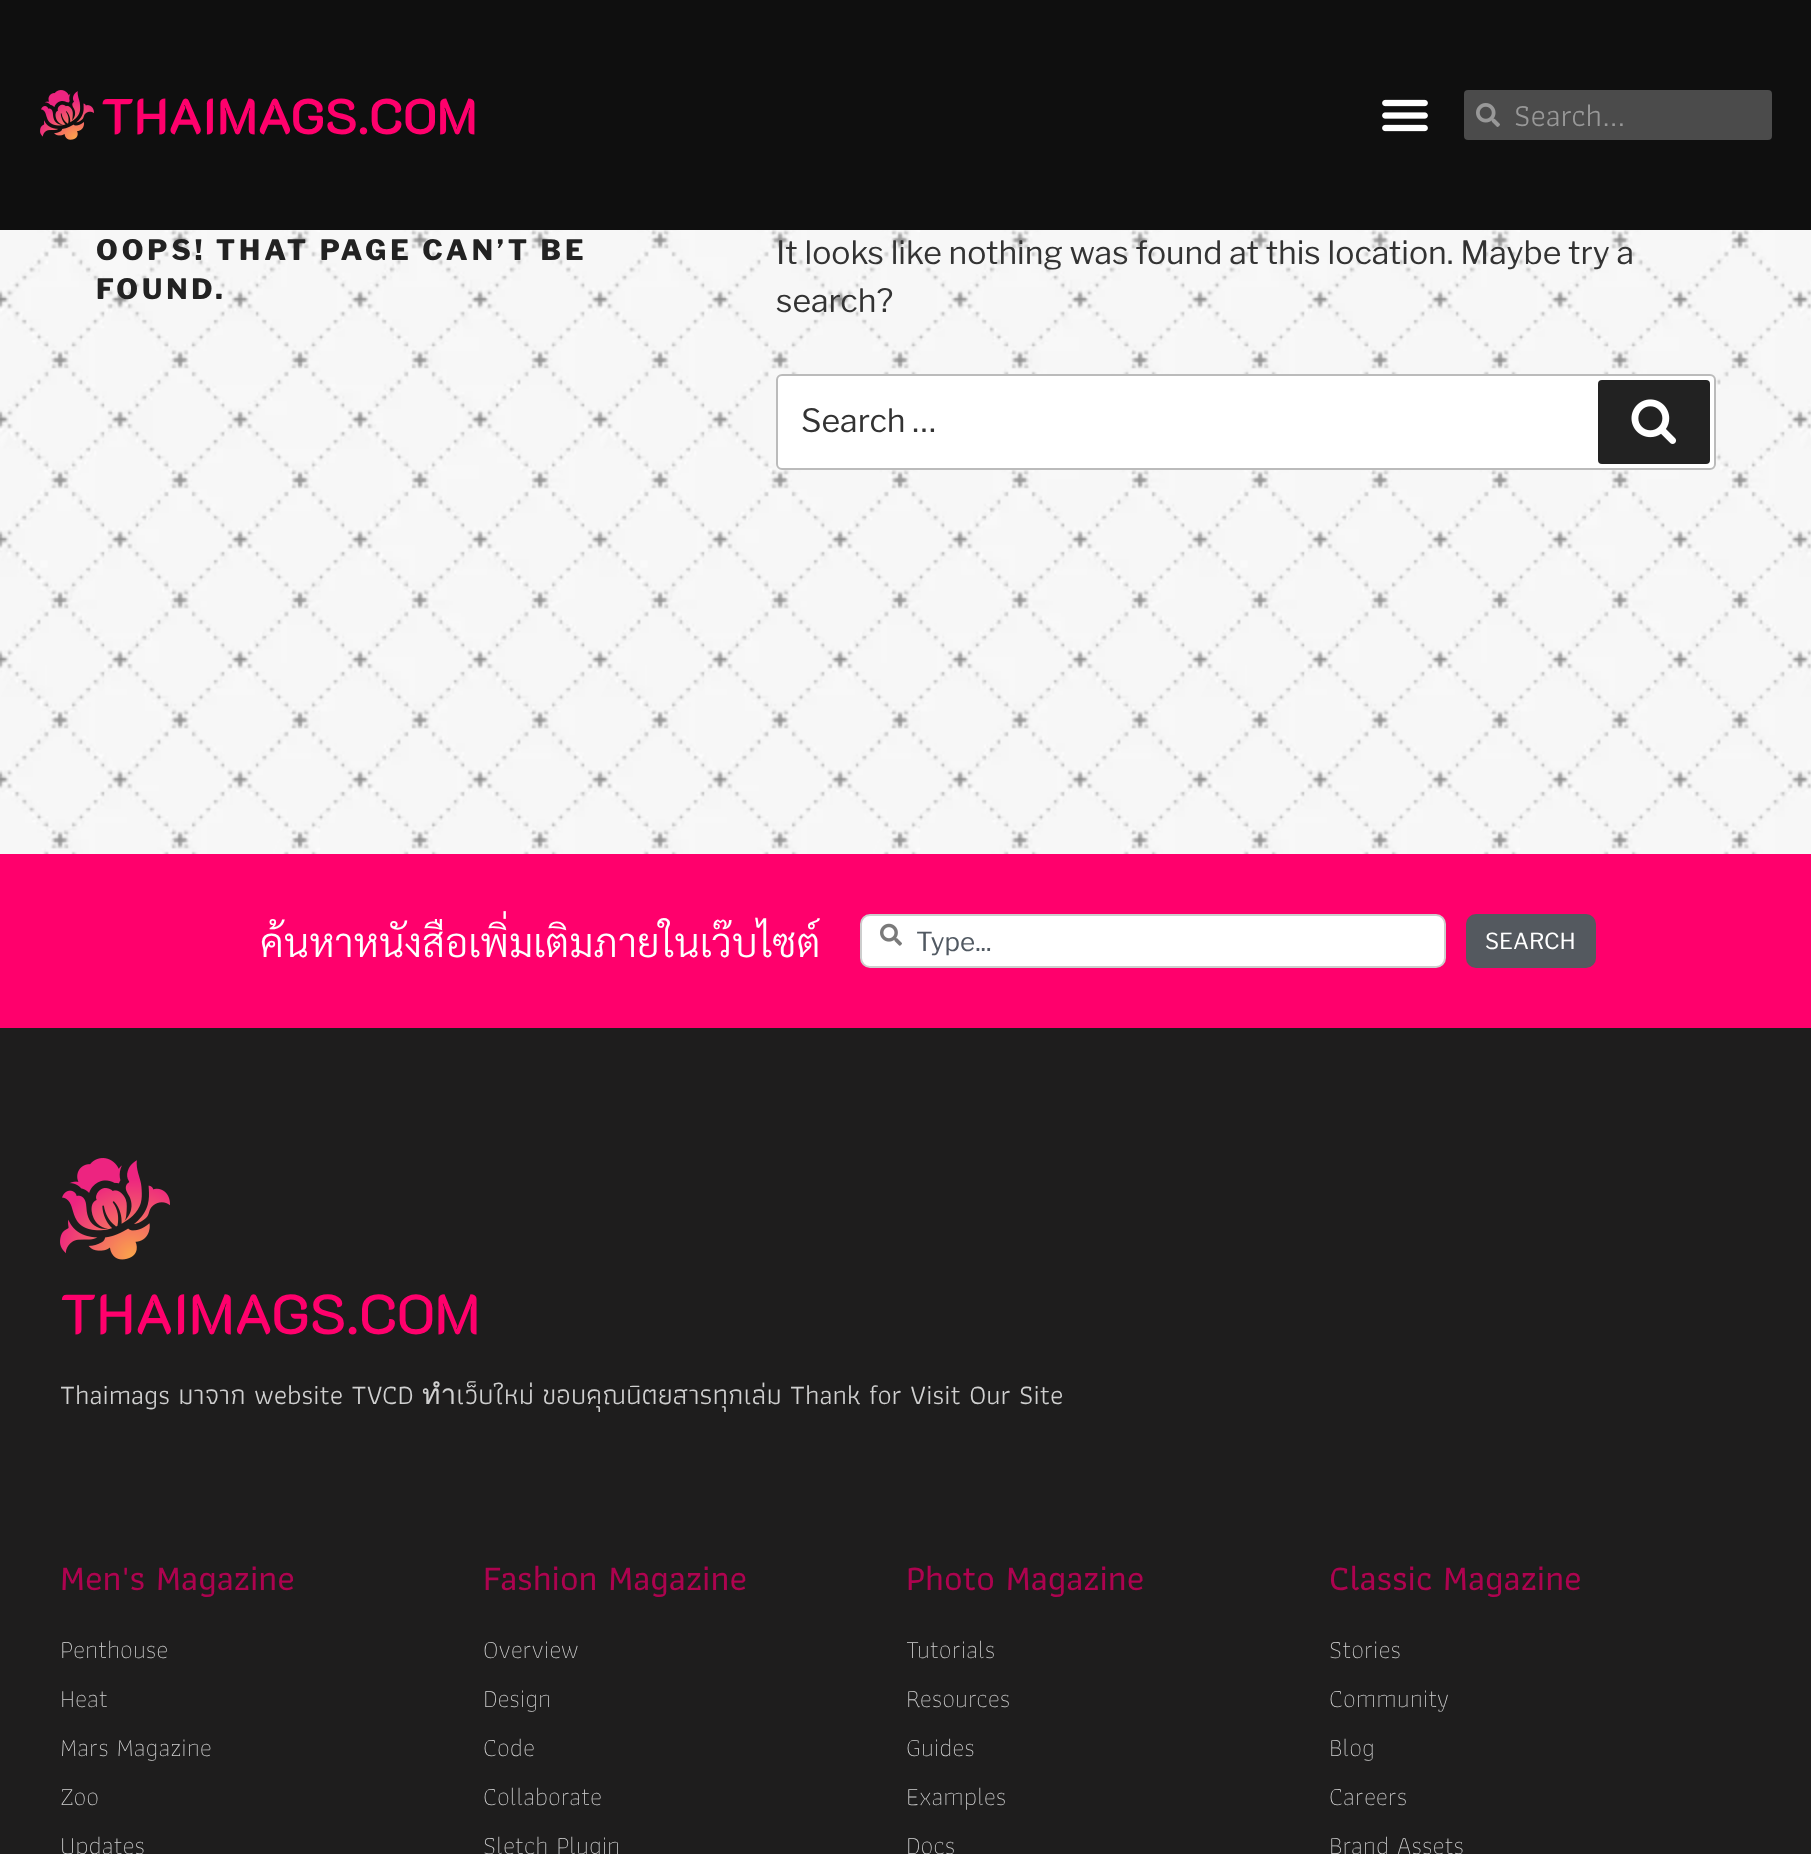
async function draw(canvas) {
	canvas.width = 1811;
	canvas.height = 1854;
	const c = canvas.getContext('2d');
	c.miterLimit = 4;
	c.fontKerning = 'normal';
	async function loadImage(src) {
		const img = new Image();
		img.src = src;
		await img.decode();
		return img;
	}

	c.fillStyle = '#fff';
	c.fillRect(0, 0, 1811, 1854);
	c.drawImage(await loadImage('img1.png'), 0, 230, 1811, 624);
	c.fillStyle = '#0f0f0f';
	c.fillRect(0, 0, 1811, 230);
	c.drawImage(await loadImage('img2.png'), 40, 90, 54, 50);
	c.font = '600 50px "K2D"';
	c.fillStyle = '#ff006c';
	c.fillText('THAIMAGS.COM', 101, 134);
	c.drawImage(await loadImage('img3.png'), 1382, 99, 46, 33);
	c.fillStyle = '#4b4b4b';
	c.beginPath();
	c.roundRect(1464, 90, 308, 50, 4);
	c.fill();
	c.drawImage(await loadImage('img4.png'), 1476, 103, 24, 24);
	c.font = '32px Athiti';
	c.fillStyle = '#989898';
	c.fillText('Search...', 1514, 126);
	c.letterSpacing = '3.9px';
	c.font = '100 28px Libre Franklin';
	c.fillStyle = '#222';
	c.fillText('OOPS! THAT PAGE CAN’T BE', 96, 260);
	c.fillText('FOUND.', 96, 299);
	c.letterSpacing = '0px';
	c.font = '100 32px "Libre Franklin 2"';
	c.fillStyle = '#333';
	c.fillText('It looks like nothing was found at this location. Maybe try a', 776, 264);
	c.fillText('search?', 776, 312);
	c.fillStyle = '#fff';
	c.beginPath();
	c.roundRect(777, 375, 938, 94, 5);
	c.fill();
	c.strokeStyle = '#bbb';
	c.lineWidth = 2;
	c.stroke();
	c.fillStyle = '#333';
	c.fillText('Search …', 801, 432);
	c.fillStyle = '#222';
	c.beginPath();
	c.roundRect(1598, 380, 112, 84, 4);
	c.fill();
	c.drawImage(await loadImage('img5.png'), 1631, 399, 46, 45);
	c.fillStyle = '#ff006c';
	c.fillRect(0, 854, 1811, 174);
	c.font = '300 40px Sarabun';
	c.fillStyle = '#fff';
	c.fillText('ค้นหาหนังสือเพิ่มเติมภายในเว๊บไซต์', 260, 957);
	c.beginPath();
	c.roundRect(861, 915, 584, 52, 9);
	c.fill();
	c.strokeStyle = '#cdcdcd';
	c.stroke();
	c.drawImage(await loadImage('img6.png'), 880, 923, 22, 23);
	c.font = '100 26px "Libre Franklin 2"';
	c.fillStyle = '#515962';
	c.fillText('Type...', 916, 951);
	c.fillStyle = '#54595f';
	c.beginPath();
	c.roundRect(1466, 914, 130, 54, 10);
	c.fill();
	c.font = '100 22px "Libre Franklin 2"';
	c.fillStyle = '#fff';
	c.fillText('SEARCH', 1485, 949);
	c.fillStyle = '#1e1d1d';
	c.fillRect(0, 1028, 1811, 826);
	c.drawImage(await loadImage('img7.png'), 60, 1158, 110, 102);
	c.font = '500 56px "K2D"';
	c.fillStyle = '#ff006c';
	c.fillText('THAIMAGS.COM', 60, 1334);
	c.font = '28px Athiti';
	c.fillStyle = '#d0d0d0';
	c.fillText('Thaimags มาจาก website TVCD ทำเว็บใหม่ ขอบคุณนิตยสารทุกเล่ม Thank for Visit Our Site', 60, 1404);
	c.font = '500 36px Athiti';
	c.fillStyle = '#ad034f';
	c.fillText('Men\'s Magazine', 60, 1590);
	c.font = '300 26px Athiti';
	c.fillStyle = '#d0d0d0';
	for (const [text, x, y] of [
		['Penthouse', 60, 1658],
		['Heat', 60, 1707],
		['Mars Magazine', 60, 1756],
		['Zoo', 60, 1805],
		['Updates', 60, 1854],
	]) {
		c.fillText(text, x, y);
	}
	c.font = '500 36px Athiti';
	c.fillStyle = '#ad034f';
	c.fillText('Fashion Magazine', 483, 1590);
	c.font = '300 26px Athiti';
	c.fillStyle = '#d0d0d0';
	for (const [text, x, y] of [
		['Overview', 483, 1658],
		['Design', 483, 1707],
		['Code', 483, 1756],
		['Collaborate', 483, 1805],
		['Sletch Plugin', 483, 1854],
	]) {
		c.fillText(text, x, y);
	}
	c.font = '500 36px Athiti';
	c.fillStyle = '#ad034f';
	c.fillText('Photo Magazine', 906, 1590);
	c.font = '300 26px Athiti';
	c.fillStyle = '#d0d0d0';
	for (const [text, x, y] of [
		['Tutorials', 906, 1658],
		['Resources', 906, 1707],
		['Guides', 906, 1756],
		['Examples', 906, 1805],
		['Docs', 906, 1854],
	]) {
		c.fillText(text, x, y);
	}
	c.font = '500 36px Athiti';
	c.fillStyle = '#ad034f';
	c.fillText('Classic Magazine', 1329, 1590);
	c.font = '300 26px Athiti';
	c.fillStyle = '#d0d0d0';
	for (const [text, x, y] of [
		['Stories', 1329, 1658],
		['Community', 1329, 1707],
		['Blog', 1329, 1756],
		['Careers', 1329, 1805],
		['Brand Assets', 1329, 1854],
	]) {
		c.fillText(text, x, y);
	}
}

draw(document.querySelector('canvas'));
